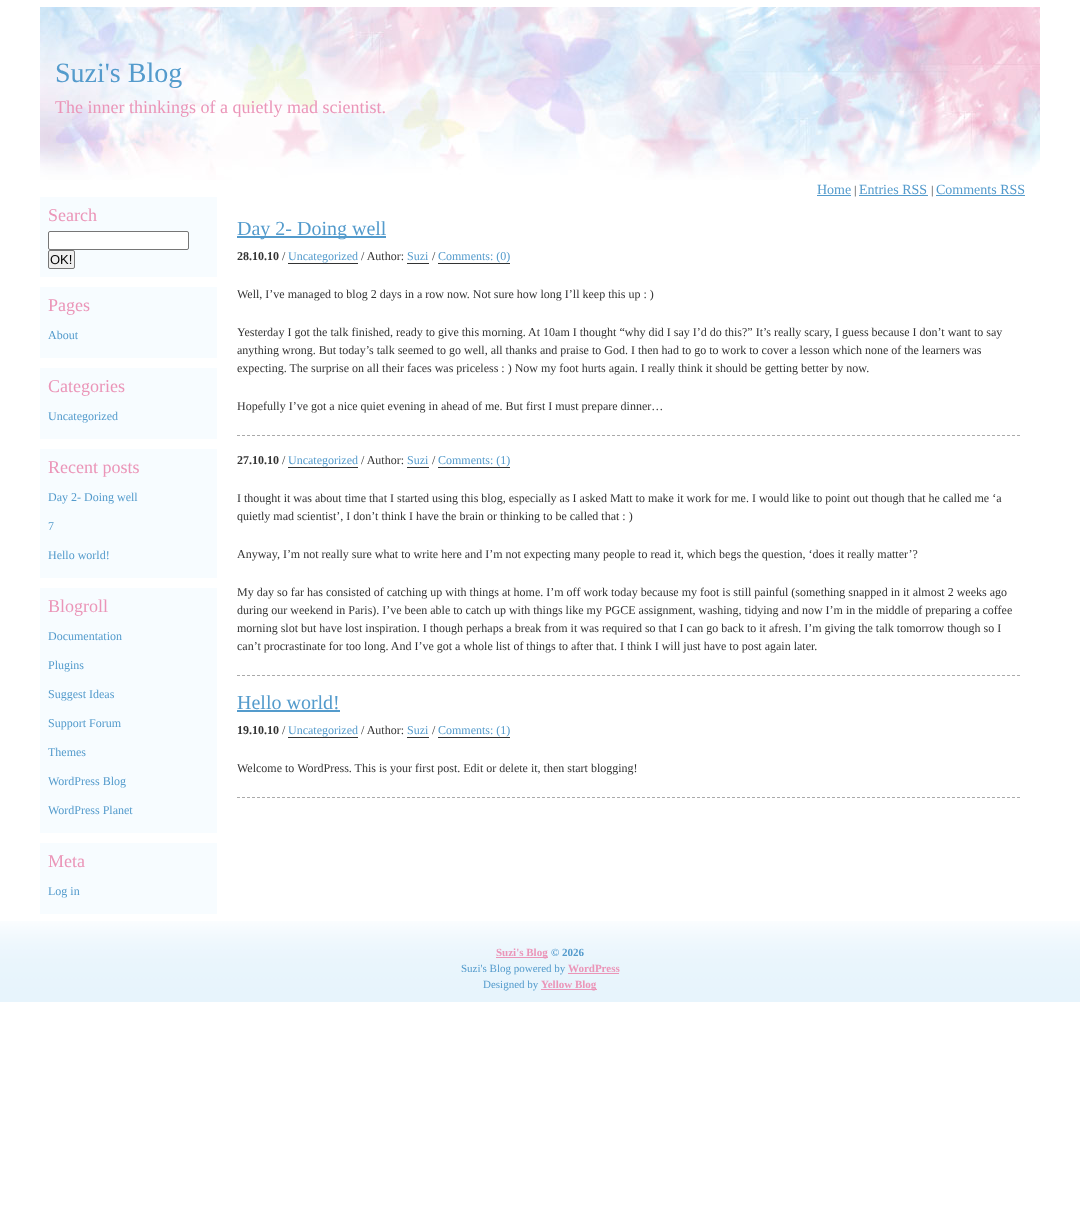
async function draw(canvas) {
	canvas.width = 1080;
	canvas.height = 1211;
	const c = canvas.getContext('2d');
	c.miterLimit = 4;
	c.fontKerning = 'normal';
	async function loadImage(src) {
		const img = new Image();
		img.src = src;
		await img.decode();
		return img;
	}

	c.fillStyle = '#fff';
	c.fillRect(0, 0, 1080, 1211);
	c.drawImage(await loadImage('img1.png'), 0, 921, 1080, 81);
	c.drawImage(await loadImage('img2.png'), 40, 7, 1000, 173);
	c.font = '28px Liberation Serif';
	c.fillStyle = '#549bcc';
	c.fillText('Suzi\'s Blog', 55, 82);
	c.font = '18px Liberation Serif';
	c.fillStyle = '#eb95b8';
	c.fillText('The inner thinkings of a quietly mad scientist.', 55, 113);
	c.font = '14px Liberation Serif';
	c.fillStyle = '#549bcc';
	c.fillText('Home', 817, 194);
	c.fillRect(817, 195, 34, 1);
	c.font = '12px Liberation Serif';
	c.fillStyle = '#333';
	c.fillText('|', 854, 194);
	c.font = '14px Liberation Serif';
	c.fillStyle = '#549bcc';
	c.fillText('Entries RSS', 859, 194);
	c.fillRect(859, 195, 69, 1);
	c.font = '12px Liberation Serif';
	c.fillStyle = '#333';
	c.fillText('|', 931, 194);
	c.font = '14px Liberation Serif';
	c.fillStyle = '#549bcc';
	c.fillText('Comments RSS', 936, 194);
	c.fillRect(936, 195, 89, 1);
	c.fillStyle = '#f7fcff';
	c.fillRect(40, 197, 177, 80);
	c.font = '18px Liberation Serif';
	c.fillStyle = '#eb95b8';
	c.fillText('Search', 48, 221);
	c.fillStyle = '#fff';
	c.beginPath();
	c.roundRect(48.5, 231.5, 140, 18, 1.5);
	c.fill();
	c.strokeStyle = '#767676';
	c.stroke();
	c.fillStyle = '#efefef';
	c.beginPath();
	c.roundRect(48.5, 250.5, 26, 18, 1.5);
	c.fill();
	c.stroke();
	c.font = '13px Liberation Sans';
	c.fillStyle = '#000';
	c.fillText('OK!', 50, 264);
	c.fillStyle = '#f7fcff';
	c.fillRect(40, 287, 177, 71);
	c.font = '18px Liberation Serif';
	c.fillStyle = '#eb95b8';
	c.fillText('Pages', 48, 311);
	c.font = '12px Liberation Serif';
	c.fillStyle = '#549bcc';
	c.fillText('About', 48, 339);
	c.fillStyle = '#f7fcff';
	c.fillRect(40, 368, 177, 71);
	c.font = '18px Liberation Serif';
	c.fillStyle = '#eb95b8';
	c.fillText('Categories', 48, 392);
	c.font = '12px Liberation Serif';
	c.fillStyle = '#549bcc';
	c.fillText('Uncategorized', 48, 420);
	c.fillStyle = '#f7fcff';
	c.fillRect(40, 449, 177, 129);
	c.font = '18px Liberation Serif';
	c.fillStyle = '#eb95b8';
	c.fillText('Recent posts', 48, 473);
	c.font = '12px Liberation Serif';
	c.fillStyle = '#549bcc';
	for (const [text, x, y] of [
		['Day 2- Doing well', 48, 501],
		['7', 48, 530],
		['Hello world!', 48, 559],
	]) {
		c.fillText(text, x, y);
	}
	c.fillStyle = '#f7fcff';
	c.fillRect(40, 588, 177, 245);
	c.font = '18px Liberation Serif';
	c.fillStyle = '#eb95b8';
	c.fillText('Blogroll', 48, 612);
	c.font = '12px Liberation Serif';
	c.fillStyle = '#549bcc';
	for (const [text, x, y] of [
		['Documentation', 48, 640],
		['Plugins', 48, 669],
		['Suggest Ideas', 48, 698],
		['Support Forum', 48, 727],
		['Themes', 48, 756],
		['WordPress Blog', 48, 785],
		['WordPress Planet', 48, 814],
	]) {
		c.fillText(text, x, y);
	}
	c.fillStyle = '#f7fcff';
	c.fillRect(40, 843, 177, 71);
	c.font = '18px Liberation Serif';
	c.fillStyle = '#eb95b8';
	c.fillText('Meta', 48, 867);
	c.font = '12px Liberation Serif';
	c.fillStyle = '#549bcc';
	c.fillText('Log in', 48, 895);
	c.beginPath();
	c.moveTo(237, 435.5);
	c.lineTo(1020, 435.5);
	c.strokeStyle = '#aaa';
	c.setLineDash([3, 2]);
	c.stroke();
	c.fillRect(237, 236, 149, 2);
	c.font = '20px Liberation Serif';
	c.fillText('Day 2- Doing well', 237, 235);
	c.font = 'bold 12px Liberation Serif';
	c.fillStyle = '#333';
	c.fillText('28.10.10', 237, 260);
	c.font = '12px Liberation Serif';
	c.fillText('/', 282, 260);
	c.fillStyle = '#549bcc';
	c.fillText('Uncategorized', 288, 260);
	c.fillStyle = '#333';
	c.fillRect(288, 263, 70, 1);
	c.fillText('/ Author:', 361, 260);
	c.fillStyle = '#549bcc';
	c.fillText('Suzi', 407, 260);
	c.fillStyle = '#333';
	c.fillRect(407, 263, 22, 1);
	c.fillText('/', 432, 260);
	c.fillStyle = '#549bcc';
	c.fillText('Comments: (0)', 438, 260);
	c.fillStyle = '#333';
	c.fillRect(438, 263, 72, 1);
	for (const [text, x, y] of [
		['Well, I’ve managed to blog 2 days in a row now. Not sure how long I’ll keep this up : )', 237, 298],
		['Yesterday I got the talk finished, ready to give this morning. At 10am I thought “why did I say I’d do this?” It’s really scary, I guess because I don’t want to say', 237, 336],
		['anything wrong. But today’s talk seemed to go well, all thanks and praise to God. I then had to go to work to cover a lesson which none of the learners was', 237, 354],
		['expecting. The surprise on all their faces was priceless : ) Now my foot hurts again. I really think it should be getting better by now.', 237, 372],
		['Hopefully I’ve got a nice quiet evening in ahead of me. But first I must prepare dinner…', 237, 410],
	]) {
		c.fillText(text, x, y);
	}
	c.beginPath();
	c.moveTo(237, 675.5);
	c.lineTo(1020, 675.5);
	c.stroke();
	c.font = 'bold 12px Liberation Serif';
	c.fillText('27.10.10', 237, 464);
	c.font = '12px Liberation Serif';
	c.fillText('/', 282, 464);
	c.fillStyle = '#549bcc';
	c.fillText('Uncategorized', 288, 464);
	c.fillStyle = '#333';
	c.fillRect(288, 467, 70, 1);
	c.fillText('/ Author:', 361, 464);
	c.fillStyle = '#549bcc';
	c.fillText('Suzi', 407, 464);
	c.fillStyle = '#333';
	c.fillRect(407, 467, 22, 1);
	c.fillText('/', 432, 464);
	c.fillStyle = '#549bcc';
	c.fillText('Comments: (1)', 438, 464);
	c.fillStyle = '#333';
	c.fillRect(438, 467, 72, 1);
	for (const [text, x, y] of [
		['I thought it was about time that I started using this blog, especially as I asked Matt to make it work for me. I would like to point out though that he called me ‘a', 237, 502],
		['quietly mad scientist’, I don’t think I have the brain or thinking to be called that : )', 237, 520],
		['Anyway, I’m not really sure what to write here and I’m not expecting many people to read it, which begs the question, ‘does it really matter’?', 237, 558],
		['My day so far has consisted of catching up with things at home. I’m off work today because my foot is still painful (something snapped in it almost 2 weeks ago', 237, 596],
		['during our weekend in Paris). I’ve been able to catch up with things like my PGCE assignment, washing, tidying and now I’m in the middle of preparing a coffee', 237, 614],
		['morning slot but have lost inspiration. I though perhaps a break from it was required so that I can go back to it afresh. I’m giving the talk tomorrow though so I', 237, 632],
		['can’t procrastinate for too long. And I’ve got a whole list of things to after that. I think I will just have to post again later.', 237, 650],
	]) {
		c.fillText(text, x, y);
	}
	c.beginPath();
	c.moveTo(237, 797.5);
	c.lineTo(1020, 797.5);
	c.stroke();
	c.font = '20px Liberation Serif';
	c.fillStyle = '#549bcc';
	c.fillText('Hello world!', 237, 709);
	c.fillRect(237, 710, 103, 2);
	c.font = 'bold 12px Liberation Serif';
	c.fillStyle = '#333';
	c.fillText('19.10.10', 237, 734);
	c.font = '12px Liberation Serif';
	c.fillText('/', 282, 734);
	c.fillStyle = '#549bcc';
	c.fillText('Uncategorized', 288, 734);
	c.fillStyle = '#333';
	c.fillRect(288, 737, 70, 1);
	c.fillText('/ Author:', 361, 734);
	c.fillStyle = '#549bcc';
	c.fillText('Suzi', 407, 734);
	c.fillStyle = '#333';
	c.fillRect(407, 737, 22, 1);
	c.fillText('/', 432, 734);
	c.fillStyle = '#549bcc';
	c.fillText('Comments: (1)', 438, 734);
	c.fillStyle = '#333';
	c.fillRect(438, 737, 72, 1);
	c.fillText('Welcome to WordPress. This is your first post. Edit or delete it, then start blogging!', 237, 772);
	c.fillStyle = '#eb95b8';
	c.fillRect(496, 957, 52, 1);
	c.font = 'bold 11px Liberation Serif';
	c.fillText('Suzi\'s Blog', 496, 956);
	c.fillStyle = '#549bcc';
	c.fillText('© 2026', 551, 956);
	c.font = '11px Liberation Serif';
	c.fillText('Suzi\'s Blog powered by', 461, 972);
	c.font = 'bold 11px Liberation Serif';
	c.fillStyle = '#eb95b8';
	c.fillText('WordPress', 568, 972);
	c.fillRect(568, 973, 51, 1);
	c.font = '11px Liberation Serif';
	c.fillStyle = '#549bcc';
	c.fillText('Designed by', 483, 988);
	c.fillStyle = '#eb95b8';
	c.fillRect(541, 989, 56, 1);
	c.font = 'bold 11px Liberation Serif';
	c.fillText('Yellow Blog', 541, 988);
}

draw(document.querySelector('canvas'));
